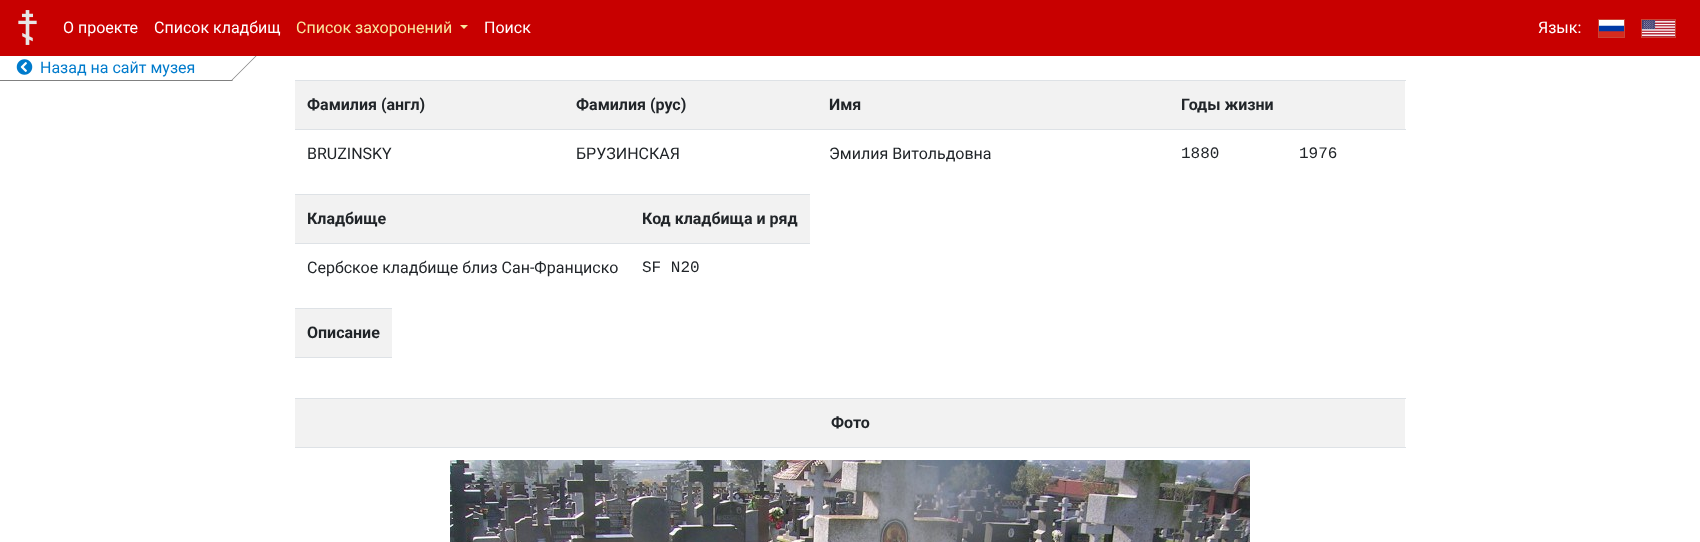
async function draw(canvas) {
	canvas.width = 1700;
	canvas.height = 542;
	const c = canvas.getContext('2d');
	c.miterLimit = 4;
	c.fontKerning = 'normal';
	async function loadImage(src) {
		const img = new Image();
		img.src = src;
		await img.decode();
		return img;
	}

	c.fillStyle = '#fff';
	c.fillRect(0, 0, 1700, 542);
	c.fillStyle = '#c80000';
	c.fillRect(0, 0, 1700, 56);
	c.drawImage(await loadImage('img1.png'), 18, 10, 19, 35);
	c.font = '16px Roboto';
	c.fillStyle = '#fff';
	c.fillText('О проекте', 63, 33);
	c.fillText('Список кладбищ', 154, 33);
	c.fillStyle = '#f9e79f';
	c.fillText('Список захоронений', 296, 33);
	c.beginPath();
	c.moveTo(460, 25);
	c.lineTo(468, 25);
	c.lineTo(464, 29);
	c.closePath();
	c.fill();
	c.fillStyle = '#fff';
	c.fillText('Поиск', 484, 33);
	c.fillText('Язык:', 1538, 33);
	c.strokeStyle = '#cb4335';
	c.strokeRect(1598.5, 19.5, 26, 18);
	c.drawImage(await loadImage('img2.png'), 1599, 20, 25, 17);
	c.strokeRect(1641.5, 19.5, 34, 18);
	c.drawImage(await loadImage('img3.png'), 1642, 20, 33, 17);
	c.fillStyle = '#808080';
	c.beginPath();
	c.moveTo(255.5, 56);
	c.lineTo(256.5, 56);
	c.lineTo(231.5, 81);
	c.lineTo(230.5, 81);
	c.closePath();
	c.fill();
	c.beginPath();
	c.moveTo(-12, 80);
	c.lineTo(233, 80);
	c.lineTo(232, 81);
	c.lineTo(-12, 81);
	c.closePath();
	c.fill();
	c.drawImage(await loadImage('img4.png'), 16, 59, 17, 16);
	c.fillStyle = '#007bcc';
	c.fillText('Назад на сайт музея', 40, 73);
	c.fillStyle = '#f2f2f2';
	c.fillRect(295, 81, 1110, 48);
	c.font = 'bold 16px Roboto';
	c.fillStyle = '#212529';
	for (const [text, x, y] of [
		['Фамилия (англ)', 307, 110],
		['Фамилия (рус)', 576, 110],
		['Имя', 829, 110],
	]) {
		c.fillText(text, x, y);
	}
	c.fillStyle = '#dee2e6';
	c.fillRect(295, 80, 1111, 1);
	c.fillStyle = '#212529';
	c.fillText('Годы жизни', 1181, 110);
	c.font = '16px Roboto';
	for (const [text, x, y] of [
		['BRUZINSKY', 307, 159],
		['БРУЗИНСКАЯ', 576, 159],
		['Эмилия Витольдовна', 829, 159],
	]) {
		c.fillText(text, x, y);
	}
	c.font = '16px Liberation Mono';
	c.fillText('1880', 1181, 158);
	c.fillStyle = '#dee2e6';
	c.fillRect(295, 129, 1111, 1);
	c.fillStyle = '#212529';
	c.fillText('1976', 1299, 158);
	c.fillStyle = '#f2f2f2';
	c.fillRect(295, 195, 515, 48);
	c.font = 'bold 16px Roboto';
	c.fillStyle = '#212529';
	c.fillText('Кладбище', 307, 224);
	c.fillStyle = '#dee2e6';
	c.fillRect(295, 194, 515, 1);
	c.fillStyle = '#212529';
	c.fillText('Код кладбища и ряд', 642, 224);
	c.font = '16px Roboto';
	c.fillText('Сербское кладбище близ Сан-Франциско', 307, 273);
	c.fillStyle = '#dee2e6';
	c.fillRect(295, 243, 515, 1);
	c.font = '16px Liberation Mono';
	c.fillStyle = '#212529';
	c.fillText('SF N20', 642, 272);
	c.fillStyle = '#f2f2f2';
	c.fillRect(295, 309, 97, 48);
	c.fillStyle = '#dee2e6';
	c.fillRect(295, 308, 97, 1);
	c.font = 'bold 16px Roboto';
	c.fillStyle = '#212529';
	c.fillText('Описание', 307, 338);
	for (const [x, y, w, h, color] of [
		[295, 357, 97, 1, '#dee2e6'],
		[295, 399, 1110, 48, '#f2f2f2'],
		[295, 398, 1111, 1, '#dee2e6'],
	]) {
		c.fillStyle = color;
		c.fillRect(x, y, w, h);
	}
	c.fillStyle = '#212529';
	c.fillText('Фото', 831, 428);
	c.fillStyle = '#dee2e6';
	c.fillRect(295, 447, 1111, 1);
	c.drawImage(await loadImage('img5.png'), 450, 460, 800, 82);
}

draw(document.querySelector('canvas'));
